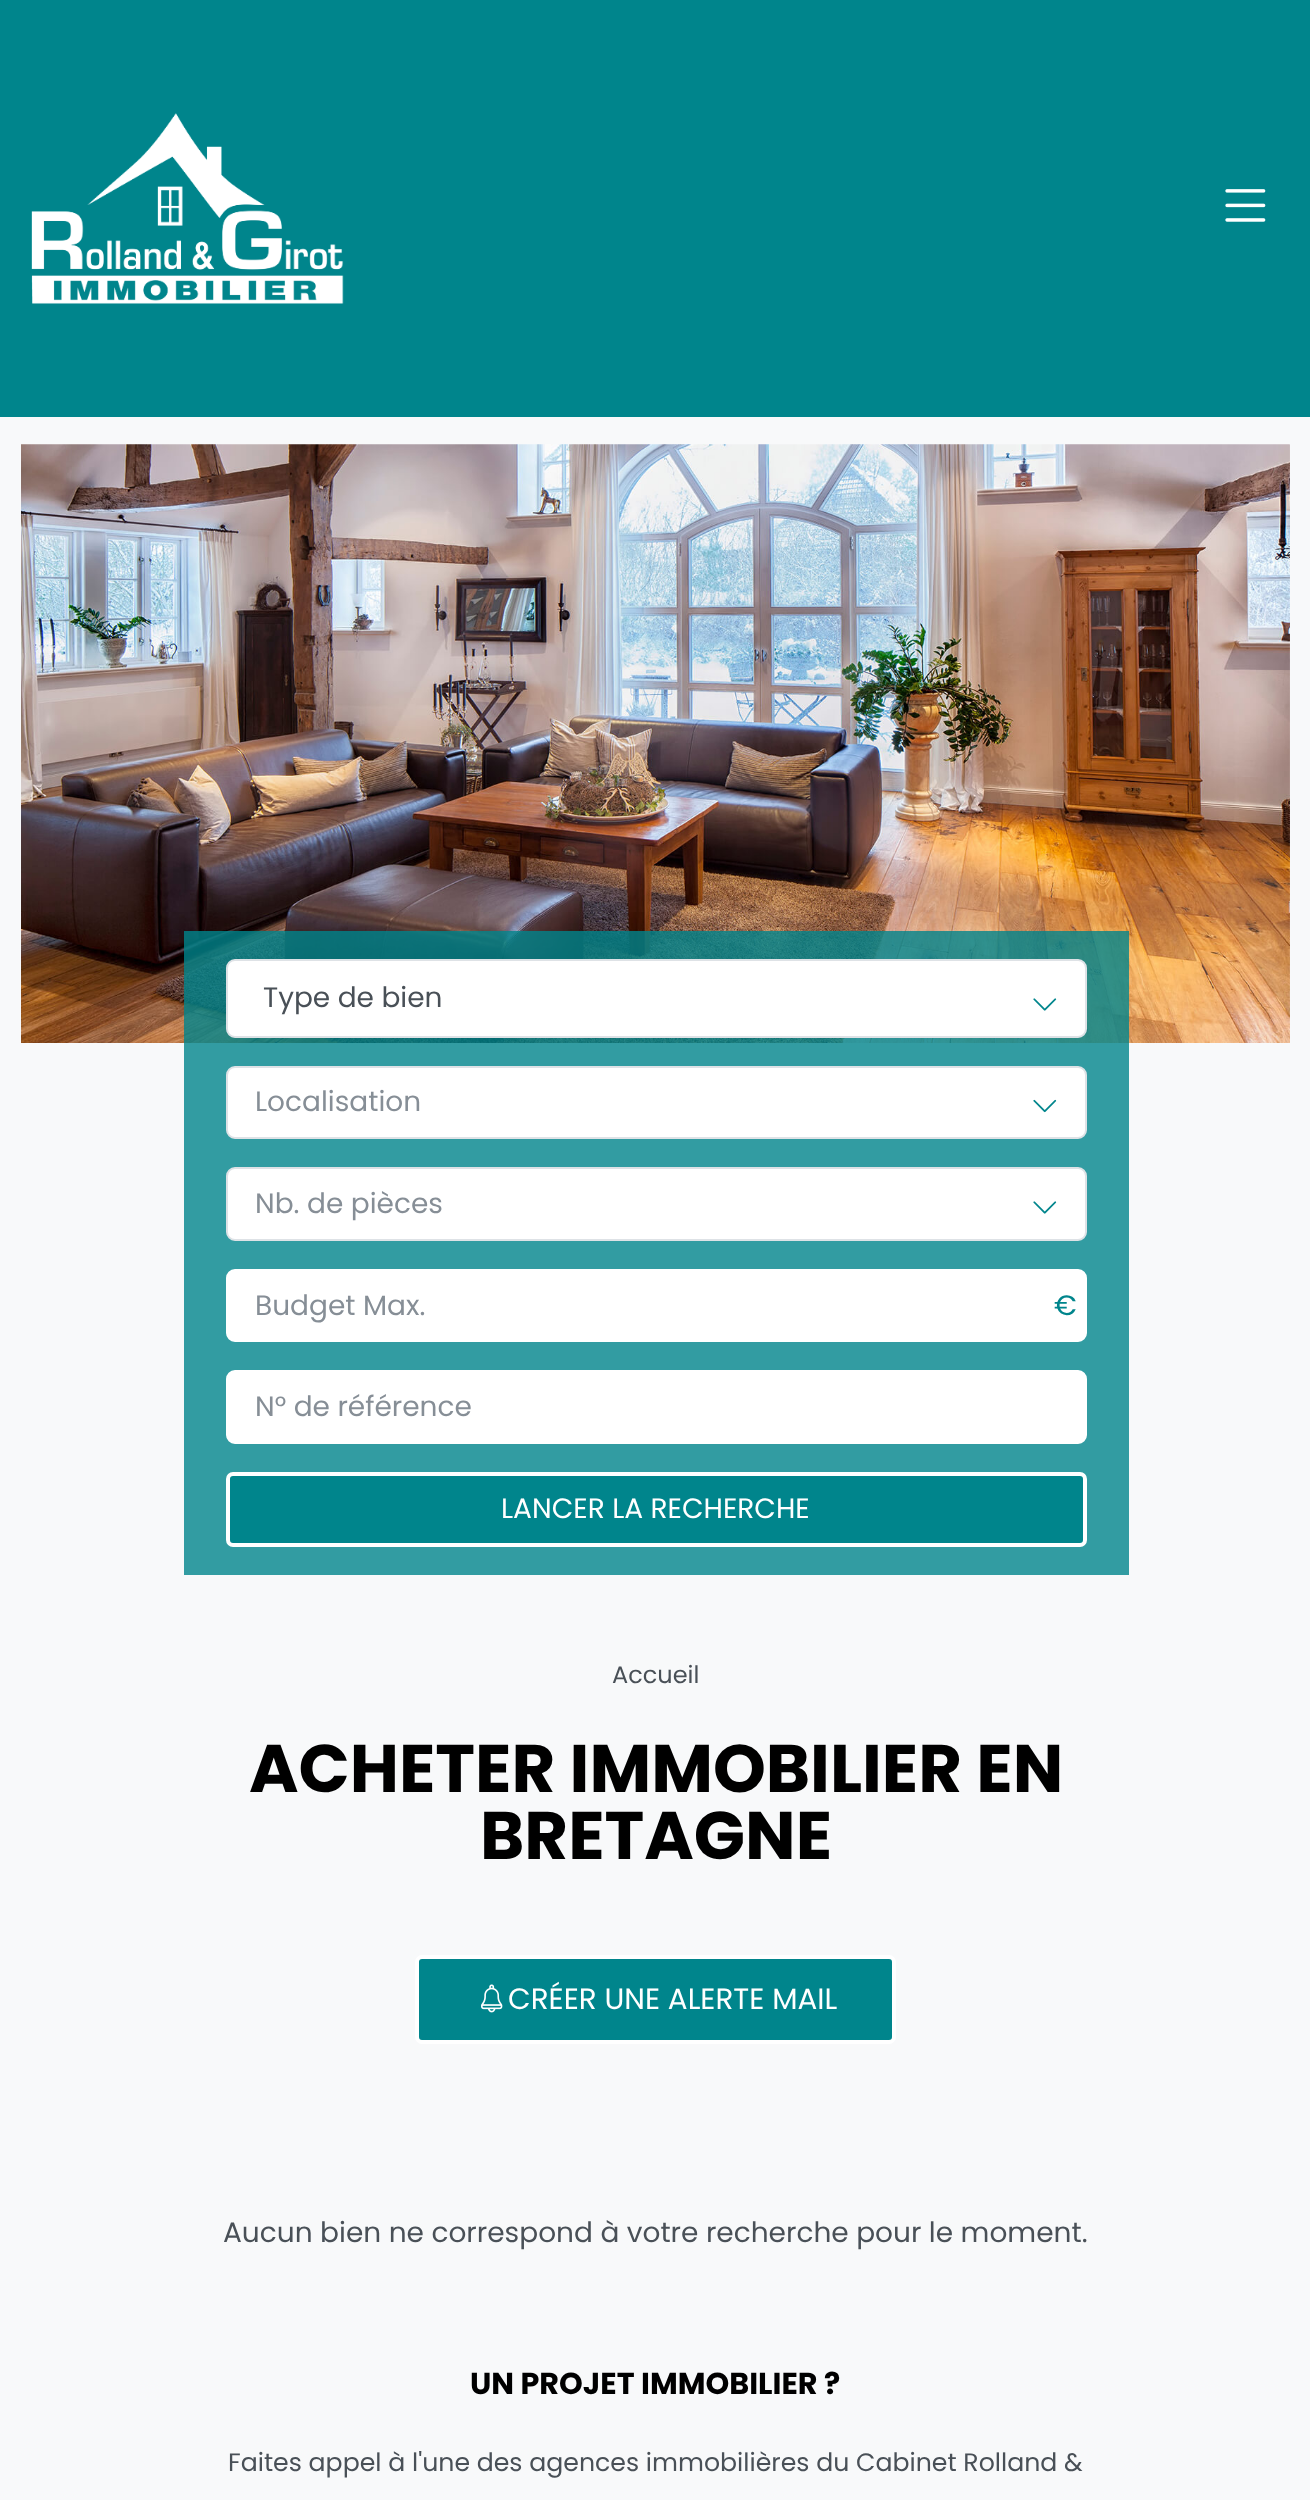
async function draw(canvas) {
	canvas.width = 1310;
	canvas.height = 2500;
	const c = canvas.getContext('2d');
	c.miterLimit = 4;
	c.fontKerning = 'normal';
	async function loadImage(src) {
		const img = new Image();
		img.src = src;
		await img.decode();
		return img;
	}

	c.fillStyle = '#f8f9fa';
	c.fillRect(0, 0, 1310, 2500);
	c.fillStyle = '#00858c';
	c.fillRect(0, 0, 1310, 417);
	c.drawImage(await loadImage('img1.png'), 31, 113, 313, 191);
	c.drawImage(await loadImage('img2.png'), 1225, 189, 41, 33);
	c.drawImage(await loadImage('img3.png'), 21, 444, 1269, 599);
	c.drawImage(await loadImage('img4.png'), 21, 444, 1269, 599);
	c.fillStyle = '#00858ccc';
	c.fillRect(184, 931, 945, 644);
	c.fillStyle = '#fff';
	c.beginPath();
	c.roundRect(227, 960, 859, 77, 8);
	c.fill();
	c.strokeStyle = '#dee2e6';
	c.lineWidth = 2;
	c.stroke();
	c.font = '28px Poppins';
	c.fillStyle = '#495057';
	c.fillText('Type de bien', 263, 1007);
	c.drawImage(await loadImage('img5.png'), 1033, 998, 24, 13);
	c.fillStyle = '#fff';
	c.beginPath();
	c.roundRect(227, 1067, 859, 71, 8);
	c.fill();
	c.stroke();
	c.fillStyle = '#868e96';
	c.fillText('Localisation', 255, 1111);
	c.drawImage(await loadImage('img6.png'), 1033, 1099, 24, 14);
	c.fillStyle = '#fff';
	c.beginPath();
	c.roundRect(227, 1168, 859, 72, 8);
	c.fill();
	c.stroke();
	c.fillStyle = '#868e96';
	c.fillText('Nb. de pièces', 255, 1213);
	c.drawImage(await loadImage('img5.png'), 1033, 1201, 24, 13);
	c.fillStyle = '#fff';
	c.beginPath();
	c.roundRect(227, 1270, 859, 71, 8);
	c.fill();
	c.strokeStyle = '#fff';
	c.stroke();
	c.fillStyle = '#868e96';
	c.fillText('Budget Max.', 255, 1315);
	c.fillStyle = '#00858c';
	c.fillText('€', 1054, 1315);
	c.fillStyle = '#fff';
	c.beginPath();
	c.roundRect(227, 1371, 859, 72, 8);
	c.fill();
	c.stroke();
	c.fillStyle = '#868e96';
	c.fillText('N° de référence', 255, 1416);
	c.fillStyle = '#00858c';
	c.beginPath();
	c.roundRect(228, 1474, 857, 71, 5);
	c.fill();
	c.lineWidth = 4;
	c.stroke();
	c.fillStyle = '#fff';
	c.fillText('LANCER LA RECHERCHE', 501, 1518);
	c.font = '24px Poppins';
	c.fillStyle = '#495057';
	c.fillText('Accueil', 612, 1683);
	c.font = 'bold 67.25px Poppins';
	c.fillStyle = '#000';
	c.fillText('ACHETER IMMOBILIER EN', 249, 1792);
	c.fillText('BRETAGNE', 480, 1859);
	c.fillStyle = '#00858c';
	c.beginPath();
	c.roundRect(417, 1957, 477, 85, 5);
	c.fill();
	c.stroke();
	c.drawImage(await loadImage('img7.png'), 481, 1984, 22, 29);
	c.font = '29.4px Poppins';
	c.fillStyle = '#fff';
	c.fillText('CRÉER UNE ALERTE MAIL', 508, 2009);
	c.font = '28px Poppins';
	c.fillStyle = '#495057';
	c.fillText('Aucun bien ne correspond à votre recherche pour le moment.', 223, 2242);
	c.font = 'bold 30.25px Poppins';
	c.fillStyle = '#000';
	c.fillText('UN PROJET IMMOBILIER ?', 470, 2394);
	c.font = '25.2px Poppins';
	c.fillStyle = '#495057';
	c.fillText('Faites appel à l\'une des agences immobilières du Cabinet Rolland &', 228, 2471);
}

draw(document.querySelector('canvas'));
